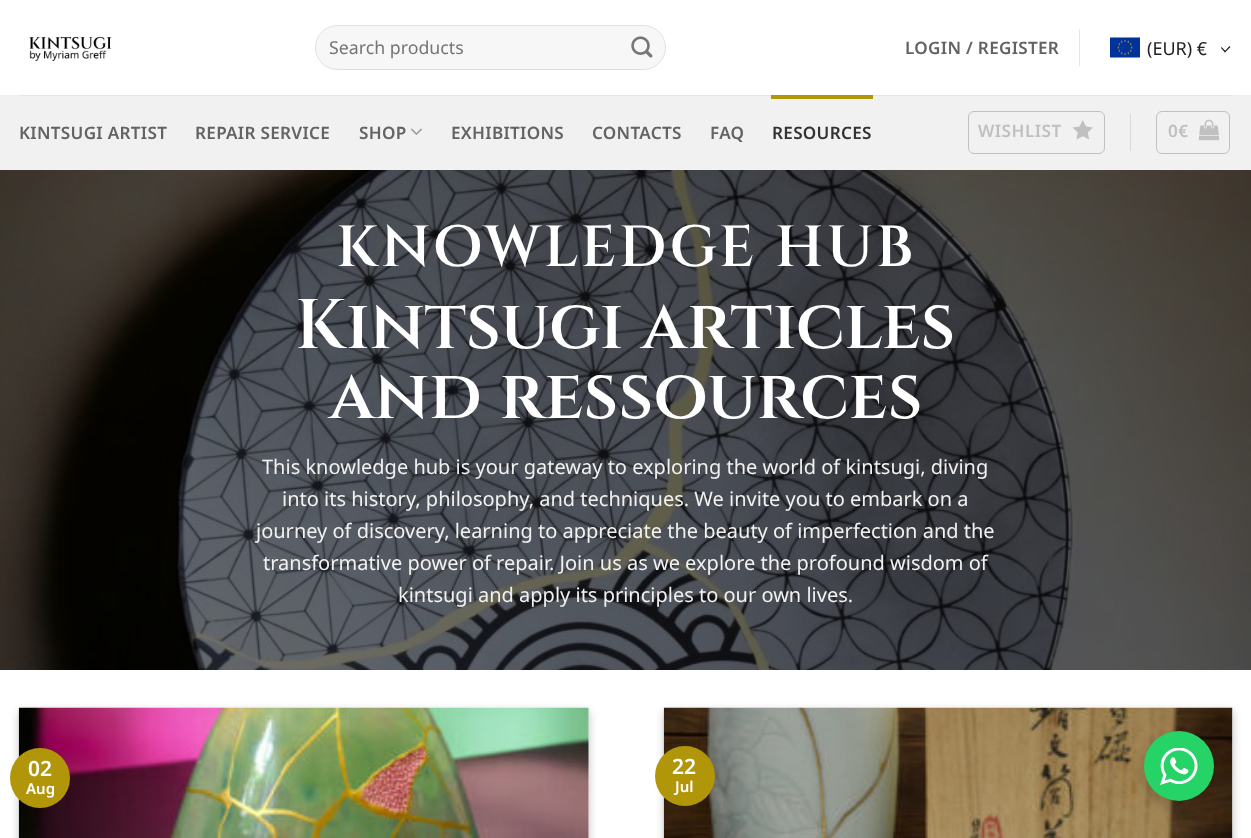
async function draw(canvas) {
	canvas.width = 1251;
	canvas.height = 838;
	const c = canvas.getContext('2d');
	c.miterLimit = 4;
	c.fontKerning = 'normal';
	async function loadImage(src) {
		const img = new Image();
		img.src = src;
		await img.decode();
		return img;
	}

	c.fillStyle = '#fff';
	c.fillRect(0, 0, 1251, 838);
	c.drawImage(await loadImage('img1.png'), 29, 36, 83, 25);
	c.fillStyle = '#f7f7f7';
	c.beginPath();
	c.roundRect(315, 25, 351, 45, 22.5);
	c.fill();
	c.beginPath();
	c.roundRect(315.5, 25.5, 350, 44, 22);
	c.strokeStyle = '#00000017';
	c.stroke();
	c.font = '17.75px Noto Sans';
	c.fillStyle = '#757575';
	c.fillText('Search products', 329, 54);
	c.drawImage(await loadImage('img2.png'), 631, 36, 22, 22);
	c.letterSpacing = '0.3px';
	c.font = '600 17.1px Noto Sans';
	c.fillStyle = '#636363';
	c.fillText('LOGIN / REGISTER', 905, 54);
	c.fillStyle = '#e6e6e6';
	c.fillRect(1079, 29, 1, 37);
	c.drawImage(await loadImage('img3.png'), 1110, 37, 30, 21);
	c.letterSpacing = '0px';
	c.font = '18px Noto Sans';
	c.fillStyle = '#212121';
	c.fillText('(EUR) €', 1147, 55);
	c.beginPath();
	c.moveTo(1229.5, 46);
	c.lineTo(1230.5, 47);
	c.lineTo(1225, 52.5);
	c.lineTo(1224.5, 51.5);
	c.closePath();
	c.fill();
	c.beginPath();
	c.moveTo(1221.5, 47);
	c.lineTo(1226, 51.5);
	c.lineTo(1225, 52.5);
	c.lineTo(1221, 48);
	c.closePath();
	c.fill();
	c.fillStyle = '#f1f1f1';
	c.fillRect(0, 95, 1251, 75);
	c.fillStyle = '#e5e5e5';
	c.fillRect(19, 95, 1214, 1);
	c.letterSpacing = '0.3px';
	c.font = '600 17.1px Noto Sans';
	c.fillStyle = '#636363';
	for (const [text, x, y] of [
		['KINTSUGI ARTIST', 19, 139],
		['REPAIR SERVICE', 195, 139],
		['SHOP', 359, 139],
	]) {
		c.fillText(text, x, y);
	}
	c.drawImage(await loadImage('img4.png'), 411, 128, 11, 7);
	for (const [text, x, y] of [
		['EXHIBITIONS', 451, 139],
		['CONTACTS', 592, 139],
		['FAQ', 710, 139],
	]) {
		c.fillText(text, x, y);
	}
	c.fillStyle = '#b29609';
	c.fillRect(771, 96, 102, 3);
	c.fillStyle = '#ac9314';
	c.fillRect(771, 95, 102, 1);
	c.fillStyle = '#333';
	c.fillText('RESOURCES', 772, 139);
	c.beginPath();
	c.roundRect(968.5, 111.5, 136, 42, 5.5);
	c.strokeStyle = '#c0c0c0';
	c.stroke();
	c.letterSpacing = '0.5px';
	c.fillStyle = '#c0c0c0';
	c.fillText('WISHLIST', 978, 137);
	c.drawImage(await loadImage('img5.png'), 1072, 120, 21, 20);
	c.fillStyle = '#d9d9d9';
	c.fillRect(1130, 114, 1, 37);
	c.beginPath();
	c.roundRect(1156.5, 111.5, 73, 42, 5.5);
	c.stroke();
	c.fillStyle = '#c0c0c0';
	c.fillText('0€', 1168, 137);
	c.drawImage(await loadImage('img6.png'), 1198, 119, 22, 22);
	c.drawImage(await loadImage('img7.png'), 0, 170, 1251, 500);
	c.letterSpacing = '2.9px';
	c.font = '600 58px Cinzel';
	c.fillStyle = '#fff';
	c.fillText('KNOWLEDGE HUB', 336, 266);
	c.letterSpacing = '0px';
	c.font = '600 70px Cinzel';
	c.fillText('Kintsugi articles', 295, 348);
	c.fillText('and ressources', 329, 418);
	c.font = '20px Noto Sans';
	c.fillStyle = '#f1f1f1';
	for (const [text, x, y] of [
		['This knowledge hub is your gateway to exploring the world of kintsugi, diving', 262, 474],
		['into its history, philosophy, and techniques. We invite you to embark on a', 282, 506],
		['journey of discovery, learning to appreciate the beauty of imperfection and the', 256, 538],
		['transformative power of repair. Join us as we explore the profound wisdom of', 263, 570],
		['kintsugi and apply its principles to our own lives.', 398, 602],
	]) {
		c.fillText(text, x, y);
	}
	c.fillStyle = '#0000003b';
	c.filter = 'blur(4px)';
	c.beginPath();
	c.rect(19, 711, 570, 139);
	c.fill();
	c.filter = 'none';
	c.fillStyle = '#fff';
	c.fillRect(588, 708, 1, 130);
	c.drawImage(await loadImage('img8.png'), 18, 707, 571, 131);
	c.fillStyle = '#b29609';
	c.beginPath();
	c.arc(40, 778, 30, 0, 2 * Math.PI);
	c.fill();
	c.font = '600 21px Noto Sans';
	c.fillStyle = '#fff';
	c.fillText('02', 28, 776);
	c.font = '600 15px Noto Sans';
	c.fillText('Aug', 26, 794);
	c.fillStyle = '#0000003b';
	c.filter = 'blur(4px)';
	c.beginPath();
	c.rect(664, 711, 569, 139);
	c.fill();
	c.filter = 'none';
	c.fillStyle = '#fff';
	c.fillRect(1232, 708, 1, 130);
	c.drawImage(await loadImage('img9.png'), 663, 707, 570, 131);
	c.fillStyle = '#b29609';
	c.beginPath();
	c.arc(685, 776, 30, 0, 2 * Math.PI);
	c.fill();
	c.font = '600 21px Noto Sans';
	c.fillStyle = '#fff';
	c.fillText('22', 672, 774);
	c.font = '600 15px Noto Sans';
	c.fillText('Jul', 675, 792);
	c.fillStyle = '#00000024';
	c.filter = 'blur(5px)';
	c.beginPath();
	c.roundRect(1141, 736, 75, 75, 37.5);
	c.fill();
	c.filter = 'none';
	c.fillStyle = '#25d366';
	c.beginPath();
	c.arc(1179, 766, 35, 0, 2 * Math.PI);
	c.fill();
	c.drawImage(await loadImage('img10.png'), 1160, 748, 38, 37);
}

draw(document.querySelector('canvas'));
